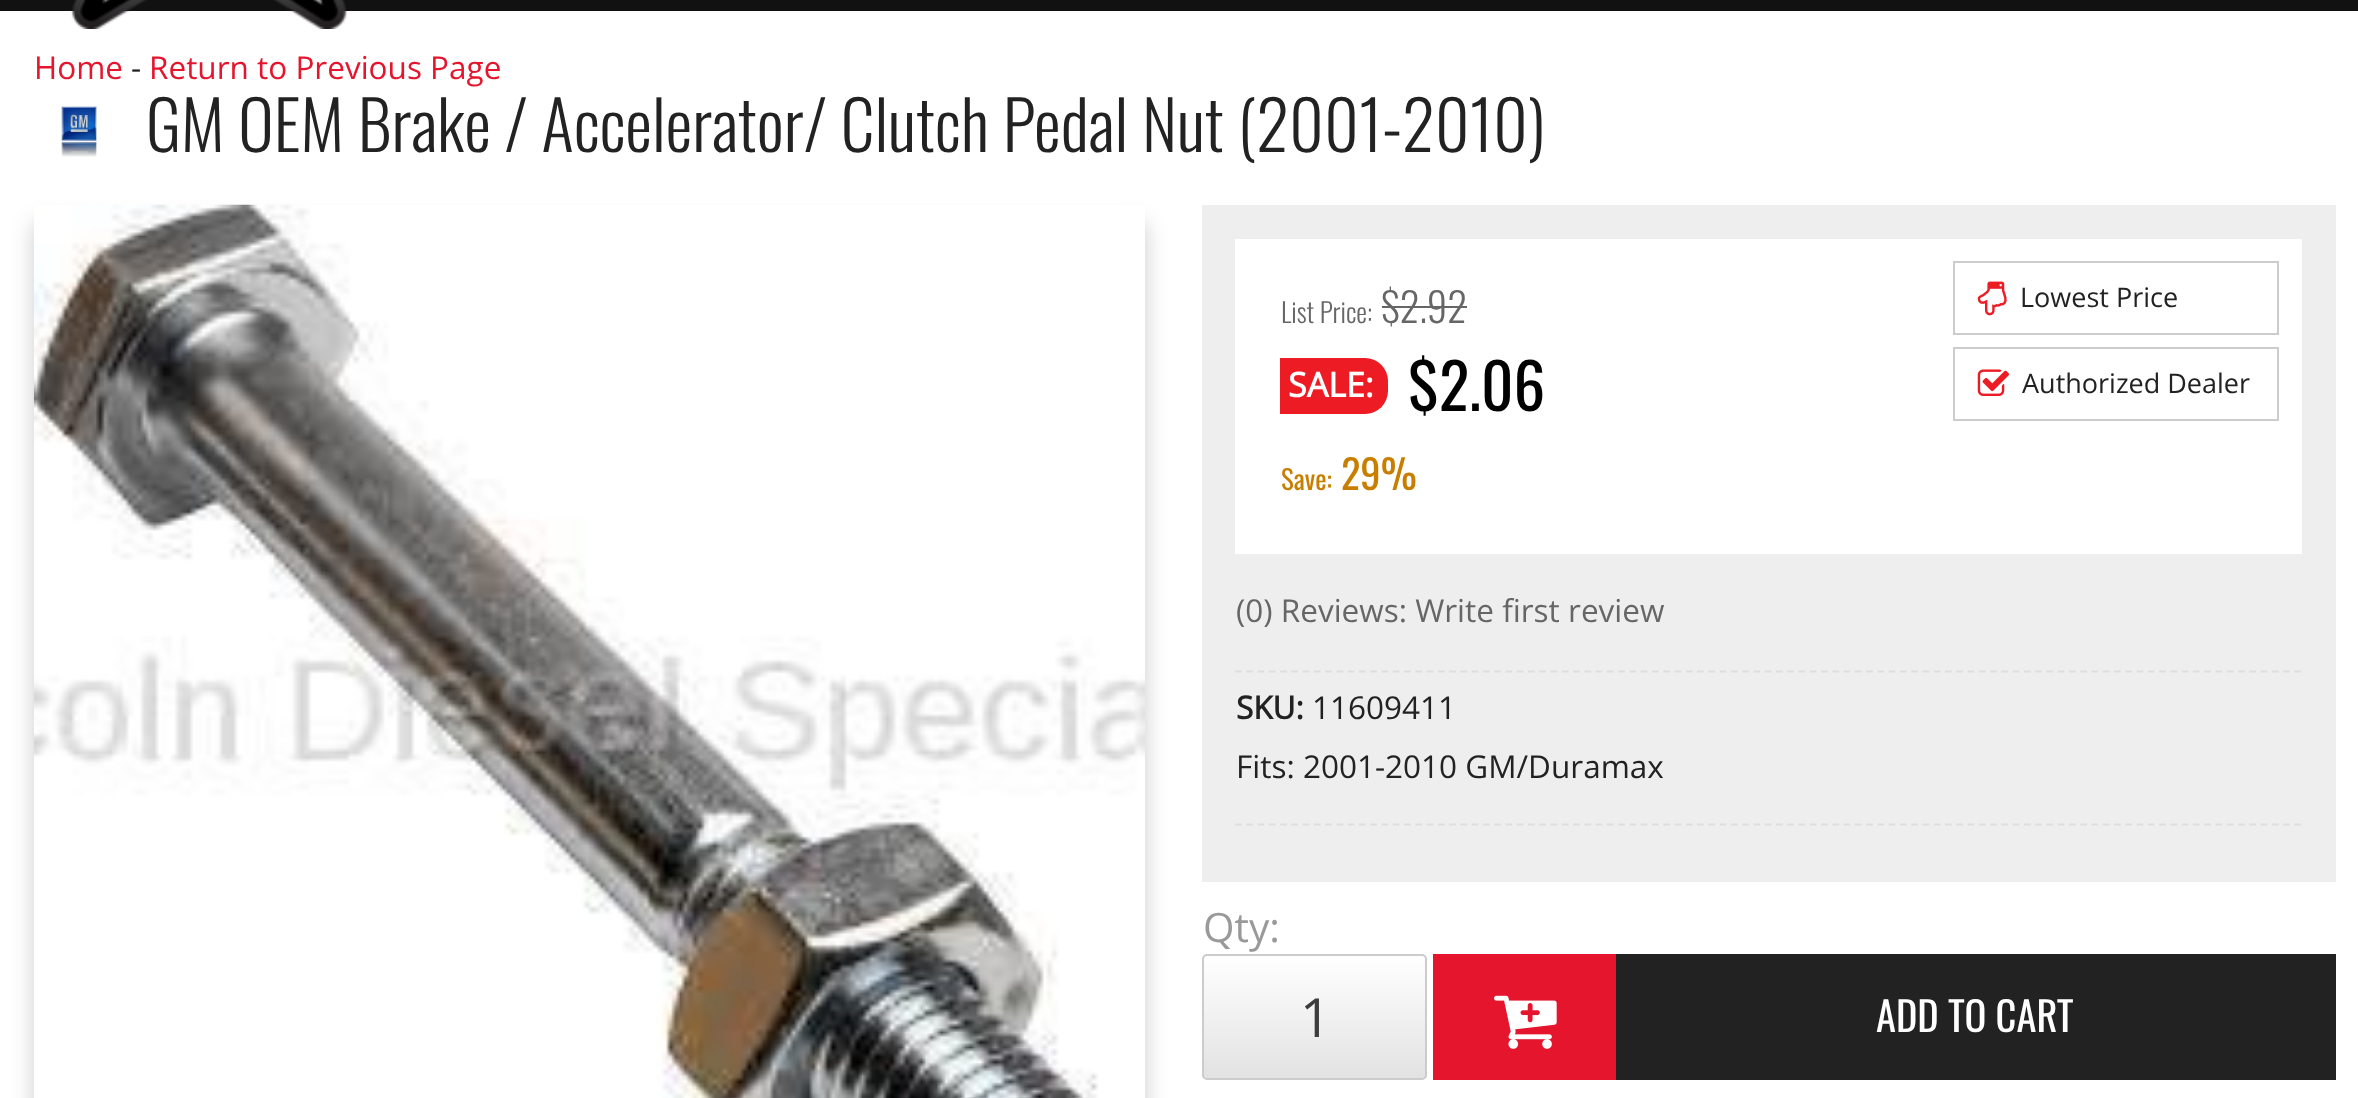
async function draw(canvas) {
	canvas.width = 2358;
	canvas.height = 1098;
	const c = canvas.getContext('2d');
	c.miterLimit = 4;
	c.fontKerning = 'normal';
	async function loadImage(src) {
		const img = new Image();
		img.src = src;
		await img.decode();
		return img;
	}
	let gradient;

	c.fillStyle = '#fff';
	c.fillRect(0, 0, 2358, 1098);
	c.fillStyle = '#111';
	c.fillRect(0, 0, 2358, 11);
	c.drawImage(await loadImage('img1.png'), 71, 0, 277, 29);
	c.font = '31.5px Open Sans';
	c.fillStyle = '#e4152d';
	c.fillText('Home', 34, 79);
	c.fillStyle = '#222';
	c.fillText('-', 131, 79);
	c.fillStyle = '#e4152d';
	c.fillText('Return to Previous Page', 149, 79);
	c.drawImage(await loadImage('img2.png'), 61, 106, 36, 51);
	c.font = '300 67.5px Oswald';
	c.fillStyle = '#222';
	c.fillText('GM OEM Brake / Accelerator/ Clutch Pedal Nut (2001-2010)', 146, 152);
	c.fillStyle = '#00000033';
	c.filter = 'blur(11px)';
	c.beginPath();
	c.rect(34, 223, 1111, 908);
	c.fill();
	c.filter = 'none';
	c.drawImage(await loadImage('img3.png'), 33, 204, 1112, 894);
	c.fillStyle = '#eee';
	c.fillRect(1202, 205, 1134, 677);
	c.fillStyle = '#fff';
	c.fillRect(1235, 239, 1067, 315);
	c.font = '300 27px Oswald';
	c.fillStyle = '#666';
	c.fillText('List Price:', 1281, 323);
	c.font = '300 40.5px Oswald';
	c.fillText('$2.92', 1381, 323);
	c.fillRect(1382, 306, 85, 2);
	c.strokeStyle = '#ccc';
	c.lineWidth = 2;
	c.strokeRect(1954, 262, 324, 72);
	c.drawImage(await loadImage('img4.png'), 1977, 281, 30, 35);
	c.font = '27px Open Sans';
	c.fillStyle = '#222';
	c.fillText('Lowest Price', 2020, 307);
	c.strokeRect(1954, 348, 324, 72);
	c.drawImage(await loadImage('img5.png'), 1977, 369, 33, 27);
	c.fillText('Authorized Dealer', 2022, 393);
	c.fillStyle = '#ed1c24';
	c.beginPath();
	c.roundRect(1280, 358, 108, 56, [0, 23, 23, 0]);
	c.fill();
	c.font = 'bold 34px Open Sans';
	c.fillStyle = '#fff';
	c.fillText('SALE:', 1288, 397);
	c.font = '63px Oswald';
	c.fillStyle = '#000';
	c.fillText('$2.06', 1408, 411);
	c.font = '27px Oswald';
	c.fillStyle = '#c87f00';
	c.fillText('Save:', 1281, 490);
	c.font = '40.5px Oswald';
	c.fillText('29%', 1341, 490);
	c.beginPath();
	c.moveTo(1235, 671.5);
	c.lineTo(2302, 671.5);
	c.strokeStyle = '#dedede';
	c.lineWidth = 2.2;
	c.setLineDash([6.75, 4.52]);
	c.stroke();
	c.font = '31.5px Open Sans';
	c.fillStyle = '#666';
	c.fillText('(0) Reviews: Write first review', 1236, 622);
	c.font = 'bold 31.5px Open Sans';
	c.fillStyle = '#222';
	c.fillText('SKU:', 1236, 719);
	c.font = '31.5px Open Sans';
	c.fillText('11609411', 1312, 719);
	c.beginPath();
	c.moveTo(1235, 824.5);
	c.lineTo(2302, 824.5);
	c.stroke();
	c.fillText('Fits: 2001-2010 GM/Duramax', 1236, 778);
	c.font = '40.5px Open Sans';
	c.fillStyle = '#999';
	c.fillText('Qty:', 1203, 942);
	c.save();
	c.beginPath();
	c.roundRect(1202, 954, 225, 126, 5);
	c.clip();
	gradient = c.createLinearGradient(1314, 956, 1314, 1078);
	gradient.addColorStop(0, '#fff');
	gradient.addColorStop(1, '#e2e2e2');
	c.fillStyle = gradient;
	c.fillRect(1202, 956, 225, 122);
	c.restore();
	c.beginPath();
	c.roundRect(1203, 955, 223, 124, 4);
	c.strokeStyle = '#ccc';
	c.lineWidth = 2;
	c.setLineDash([]);
	c.stroke();
	c.font = '54px Open Sans';
	c.fillStyle = '#3c3c3c';
	c.fillText('1', 1300, 1037);
	c.fillStyle = '#222';
	c.fillRect(1616, 954, 720, 126);
	c.fillStyle = '#e4152d';
	c.fillRect(1433, 954, 183, 126);
	c.drawImage(await loadImage('img6.png'), 1494, 995, 63, 54);
	c.font = '40.5px Oswald';
	c.fillStyle = '#fff';
	c.fillText('ADD TO CART', 1876, 1032);
}

draw(document.querySelector('canvas'));
